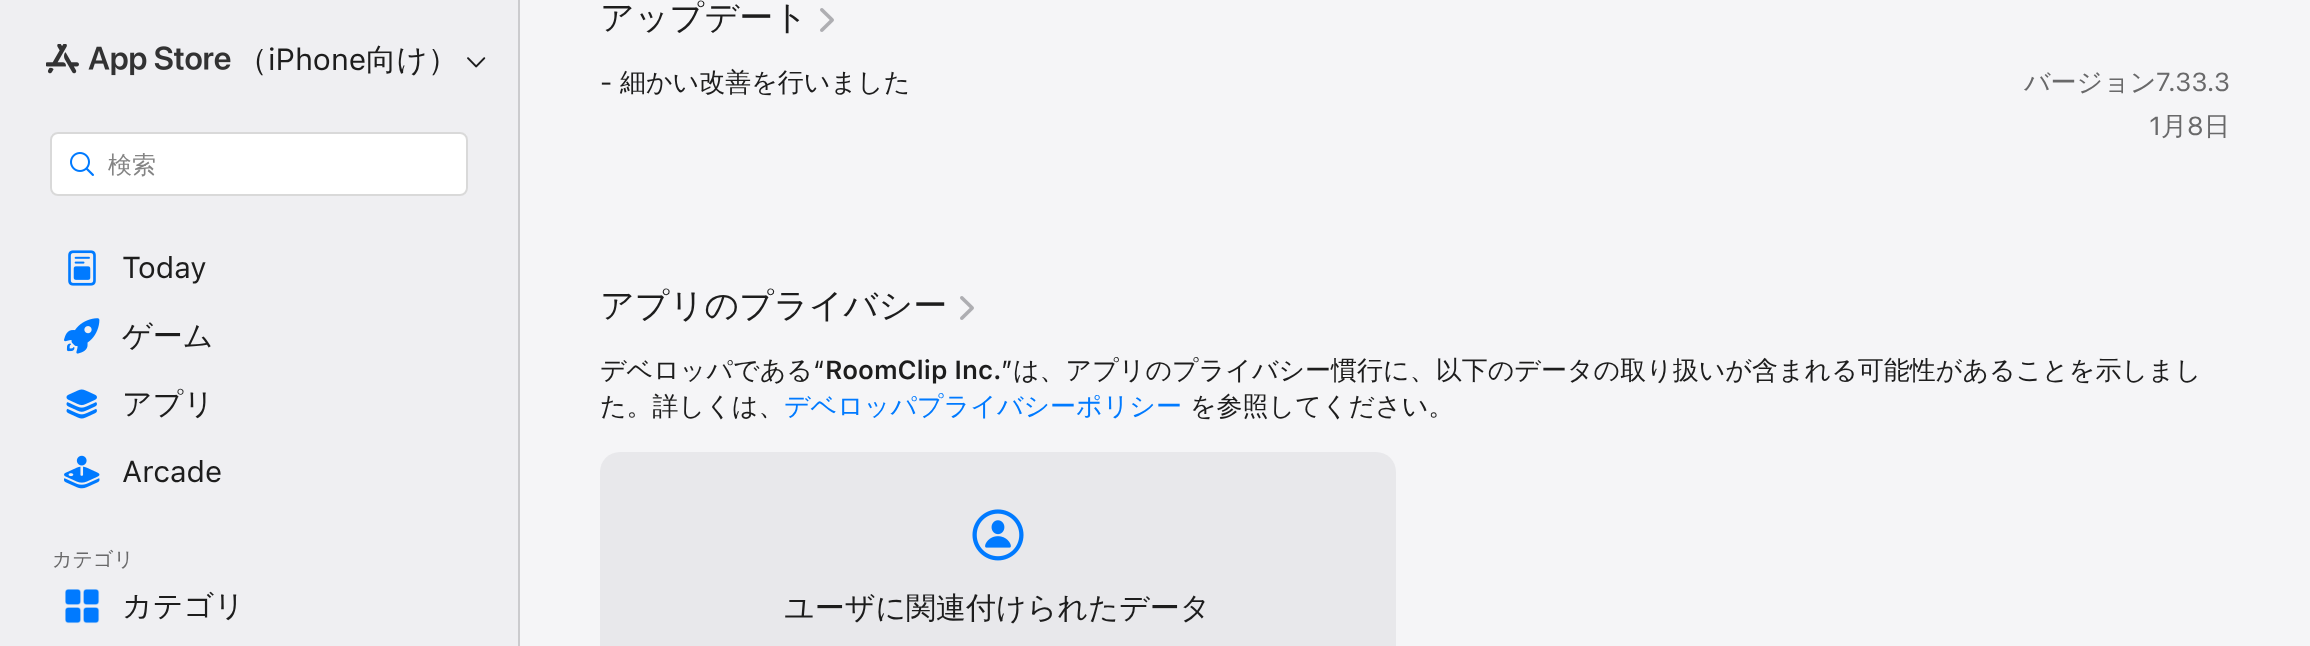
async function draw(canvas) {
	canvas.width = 2310;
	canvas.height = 646;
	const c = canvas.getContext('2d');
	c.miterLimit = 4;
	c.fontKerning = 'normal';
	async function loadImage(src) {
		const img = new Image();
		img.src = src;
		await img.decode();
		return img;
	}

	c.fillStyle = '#f5f5f7';
	c.fillRect(0, 0, 2310, 646);
	c.fillStyle = '#efeff2';
	c.fillRect(0, 0, 518, 646);
	c.fillStyle = '#cbcbce';
	c.fillRect(518, 0, 2, 646);
	c.drawImage(await loadImage('img1.png'), 46, 44, 185, 32);
	c.font = '500 30.5px WenQuanYi Zen Hei';
	c.fillStyle = '#1d1d1d';
	c.fillText('（', 237, 70);
	c.font = '30.5px SF';
	c.fillText('iPhone', 268, 70);
	c.font = '500 30.5px WenQuanYi Zen Hei';
	c.fillText('向け）', 366, 70);
	c.drawImage(await loadImage('img2.png'), 467, 57, 19, 11);
	c.fillStyle = '#fff';
	c.beginPath();
	c.roundRect(50, 132, 418, 64, 8);
	c.fill();
	c.beginPath();
	c.roundRect(51, 133, 416, 62, 7);
	c.strokeStyle = '#00000026';
	c.lineWidth = 2;
	c.stroke();
	c.drawImage(await loadImage('img3.png'), 70, 152, 24, 24);
	c.font = '500 24px WenQuanYi Zen Hei';
	c.fillStyle = '#858585';
	c.fillText('検索', 108, 173);
	c.drawImage(await loadImage('img4.png'), 68, 250, 28, 36);
	c.font = '30px SF';
	c.fillStyle = '#1d1d1d';
	c.fillText('Today', 122, 278);
	c.drawImage(await loadImage('img5.png'), 64, 318, 36, 36);
	c.font = '500 30px WenQuanYi Zen Hei';
	c.fillText('ゲーム', 122, 346);
	c.drawImage(await loadImage('img6.png'), 66, 389, 31, 30);
	c.fillText('アプリ', 122, 414);
	c.drawImage(await loadImage('img7.png'), 64, 455, 36, 34);
	c.font = '30px SF';
	c.fillText('Arcade', 122, 482);
	c.font = '500 20px WenQuanYi Zen Hei';
	c.fillStyle = '#69696a';
	c.fillText('カテゴリ', 52, 566);
	c.drawImage(await loadImage('img8.png'), 65, 589, 35, 35);
	c.font = '500 30px WenQuanYi Zen Hei';
	c.fillStyle = '#1d1d1d';
	c.fillText('カテゴリ', 122, 616);
	c.font = '500 34px WenQuanYi Zen Hei';
	c.fillText('アップデート', 600, 29);
	c.drawImage(await loadImage('img9.png'), 820, 8, 14, 24);
	c.font = '26px SF';
	c.fillText('-', 600, 91);
	c.font = '500 26px WenQuanYi Zen Hei';
	c.fillText('細かい改善を行いました', 620, 91);
	c.fillStyle = '#69696a';
	c.fillText('バージョン', 2024, 91);
	c.font = '26px SF';
	c.fillText('7.33.3', 2156, 91);
	c.fillText('1', 2149, 135);
	c.font = '500 26px WenQuanYi Zen Hei';
	c.fillText('月', 2161, 135);
	c.font = '26px SF';
	c.fillText('8', 2187, 135);
	c.font = '500 26px WenQuanYi Zen Hei';
	c.fillText('日', 2204, 135);
	c.font = '500 34px WenQuanYi Zen Hei';
	c.fillStyle = '#1d1d1d';
	c.fillText('アプリのプライバシー', 600, 317);
	c.drawImage(await loadImage('img9.png'), 960, 296, 14, 24);
	c.font = '500 26px WenQuanYi Zen Hei';
	c.fillText('デベロッパである', 600, 379);
	c.font = '26px SF';
	c.fillText('“', 813, 379);
	c.font = '600 26px SF';
	c.fillText('RoomClip Inc.', 825, 379);
	c.font = '26px SF';
	c.fillText('”', 1001, 379);
	c.font = '500 26px WenQuanYi Zen Hei';
	c.fillText('は、アプリのプライバシー慣行に、以下のデータの取り扱いが含まれる可能性があることを示しまし', 1013, 379);
	c.fillText('た。詳しくは、', 600, 415);
	c.fillStyle = '#007aff';
	c.fillText('デベロッパプライバシーポリシー', 784, 415);
	c.fillStyle = '#1d1d1d';
	c.fillText('を参照してください。', 1190, 415);
	c.fillStyle = '#e8e8eb';
	c.beginPath();
	c.roundRect(600, 452, 796, 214, 20);
	c.fill();
	c.drawImage(await loadImage('img10.png'), 972, 509, 52, 52);
	c.font = '500 30px WenQuanYi Zen Hei';
	c.fillStyle = '#1d1d1d';
	c.fillText('ユーザに関連付けられたデータ', 784, 618);
}

draw(document.querySelector('canvas'));
